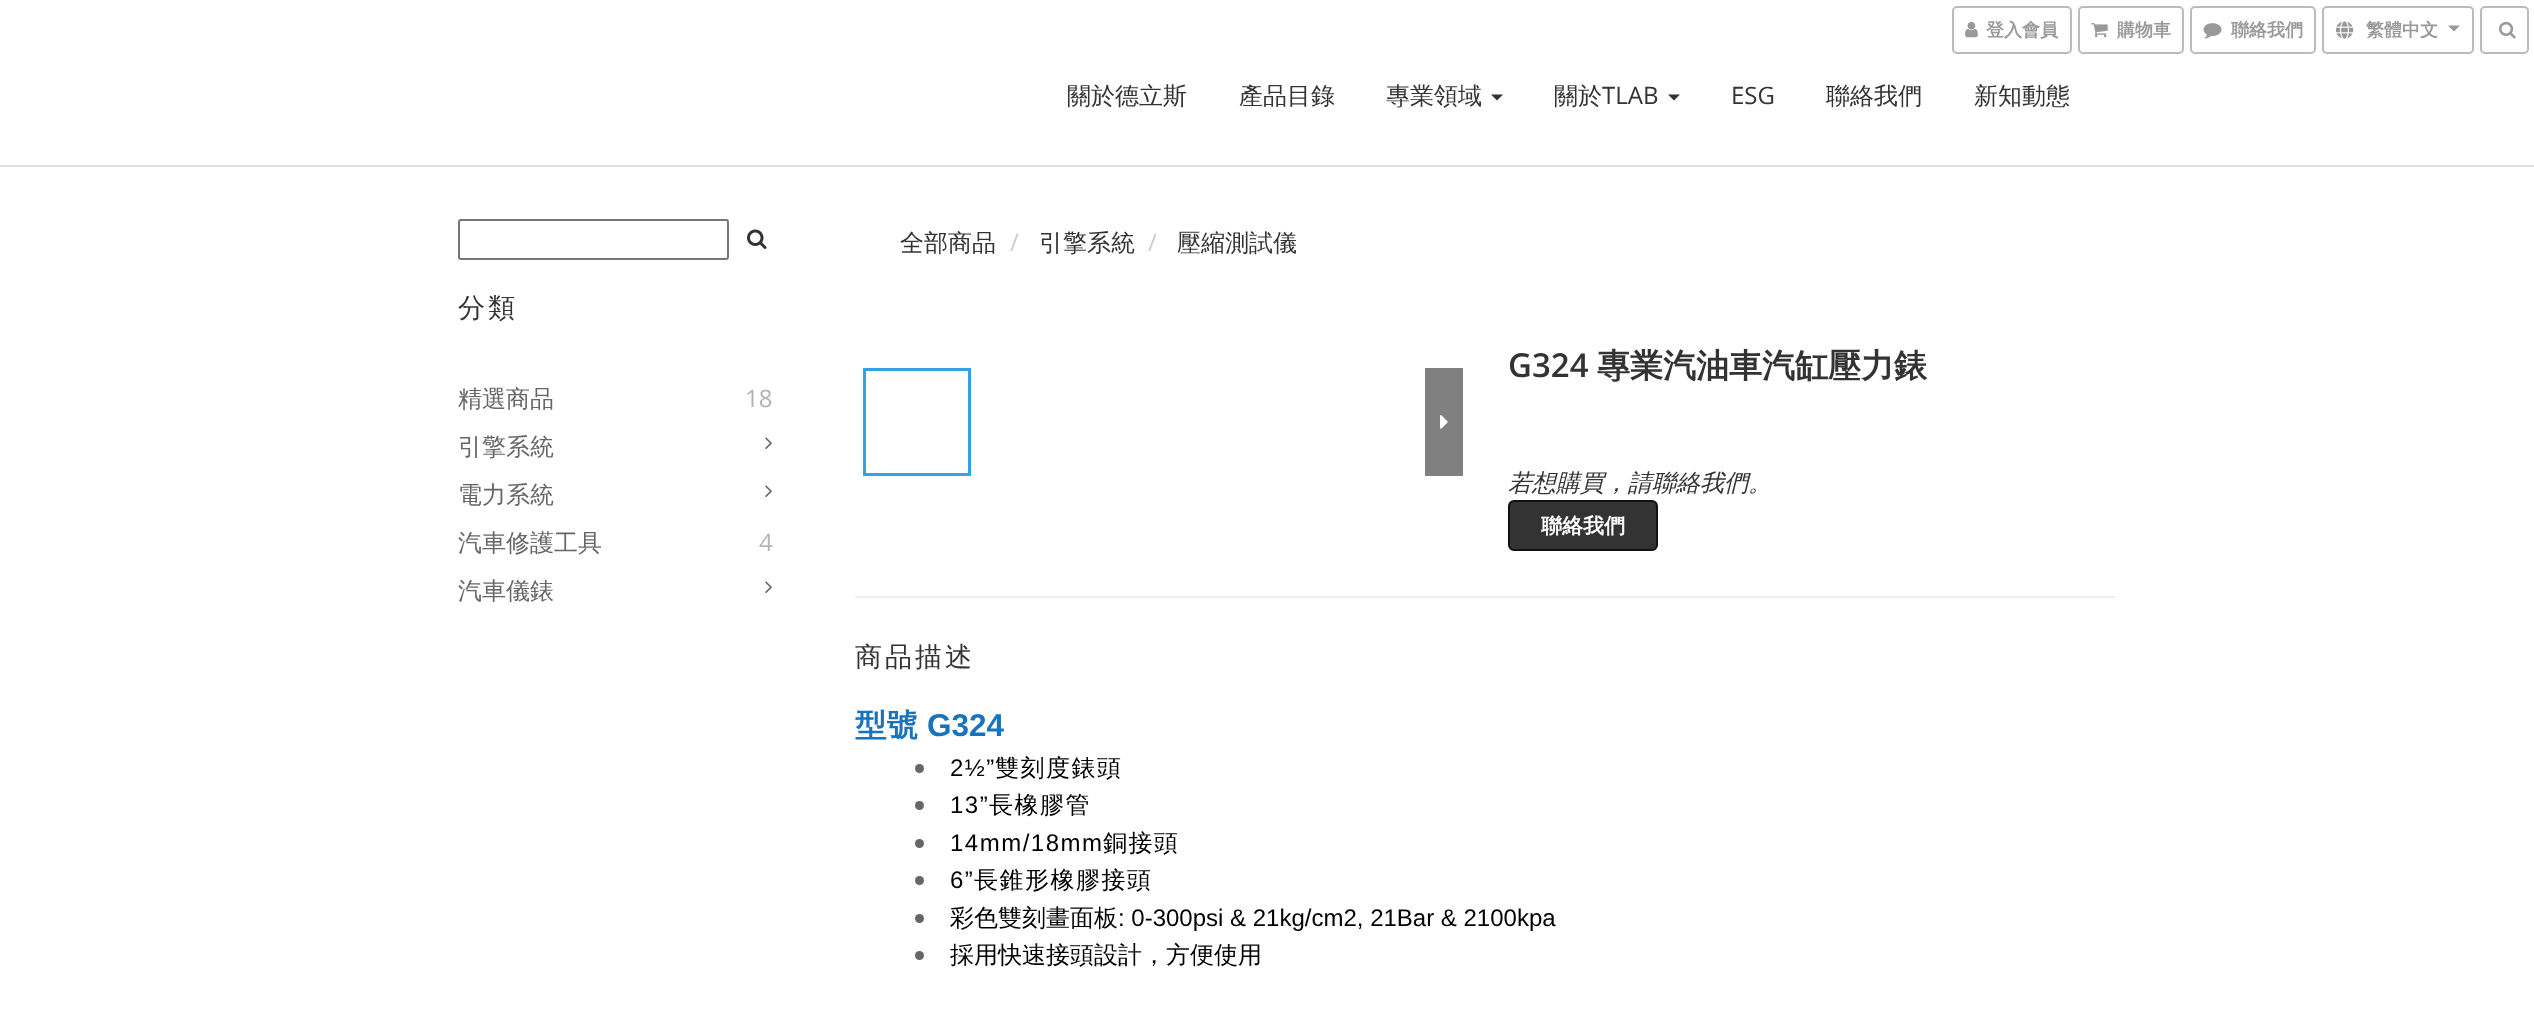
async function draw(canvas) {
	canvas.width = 2534;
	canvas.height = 1016;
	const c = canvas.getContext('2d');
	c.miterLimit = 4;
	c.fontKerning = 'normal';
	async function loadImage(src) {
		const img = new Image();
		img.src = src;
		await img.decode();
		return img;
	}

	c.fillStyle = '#fff';
	c.fillRect(0, 0, 2534, 1016);
	c.beginPath();
	c.roundRect(1953, 7, 118, 46, 4);
	c.strokeStyle = '#bbb';
	c.lineWidth = 2;
	c.stroke();
	c.drawImage(await loadImage('img1.png'), 1965, 21, 13, 17);
	c.font = 'bold 18px WenQuanYi Zen Hei';
	c.fillStyle = '#999';
	c.fillText('登入會員', 1986, 36);
	c.beginPath();
	c.roundRect(2079, 7, 104, 46, 4);
	c.stroke();
	c.drawImage(await loadImage('img2.png'), 2091, 23, 17, 15);
	c.fillText('購物車', 2117, 36);
	c.beginPath();
	c.roundRect(2191, 7, 124, 46, 4);
	c.stroke();
	c.drawImage(await loadImage('img3.png'), 2203, 23, 19, 16);
	c.fillText('聯絡我們', 2231, 36);
	c.beginPath();
	c.roundRect(2323, 7, 150, 46, 4);
	c.stroke();
	c.drawImage(await loadImage('img4.png'), 2336, 21, 18, 18);
	c.fillText('繁體中文', 2366, 36);
	c.beginPath();
	c.moveTo(2448, 25.5);
	c.lineTo(2460, 25.5);
	c.lineTo(2454, 31.5);
	c.closePath();
	c.fill();
	c.beginPath();
	c.roundRect(2481, 7, 47, 46, 4);
	c.stroke();
	c.drawImage(await loadImage('img5.png'), 2499, 21, 17, 18);
	c.fillStyle = '#e0e0e0';
	c.fillRect(0, 165, 2534, 2);
	c.font = '500 24px WenQuanYi Zen Hei';
	c.fillStyle = '#333';
	for (const [text, x, y] of [
		['關於德立斯', 1067, 104],
		['產品目錄', 1239, 104],
		['專業領域', 1386, 104],
	]) {
		c.fillText(text, x, y);
	}
	c.beginPath();
	c.moveTo(1491, 94.5);
	c.lineTo(1503, 94.5);
	c.lineTo(1497, 100.5);
	c.closePath();
	c.fill();
	c.fillText('關於', 1554, 104);
	c.font = '24px Open Sans';
	c.fillText('TLAB', 1602, 104);
	c.beginPath();
	c.moveTo(1668, 94.5);
	c.lineTo(1680, 94.5);
	c.lineTo(1674, 100.5);
	c.closePath();
	c.fill();
	c.fillText('ESG', 1731, 104);
	c.font = '500 24px WenQuanYi Zen Hei';
	c.fillText('聯絡我們', 1826, 104);
	c.fillText('新知動態', 1974, 104);
	c.beginPath();
	c.roundRect(459, 220, 269, 39, 2);
	c.strokeStyle = '#767676';
	c.stroke();
	c.drawImage(await loadImage('img6.png'), 747, 229, 20, 20);
	c.letterSpacing = '3px';
	c.font = '500 27px WenQuanYi Zen Hei';
	c.fillText('分類', 458, 317);
	c.letterSpacing = '0px';
	c.font = '500 24px WenQuanYi Zen Hei';
	c.fillStyle = '#666';
	c.fillText('精選商品', 458, 407);
	c.font = '24px Open Sans';
	c.fillStyle = '#b3b3b3';
	c.fillText('18', 745, 407);
	c.font = '500 24px WenQuanYi Zen Hei';
	c.fillStyle = '#666';
	c.fillText('引擎系統', 458, 455);
	c.drawImage(await loadImage('img7.png'), 765, 437, 7, 12);
	c.fillText('電力系統', 458, 503);
	c.drawImage(await loadImage('img7.png'), 765, 485, 7, 12);
	c.fillText('汽車修護工具', 458, 551);
	c.font = '24px Open Sans';
	c.fillStyle = '#b3b3b3';
	c.fillText('4', 759, 551);
	c.font = '500 24px WenQuanYi Zen Hei';
	c.fillStyle = '#666';
	c.fillText('汽車儀錶', 458, 599);
	c.drawImage(await loadImage('img7.png'), 765, 581, 7, 12);
	c.fillStyle = '#333';
	c.fillText('全部商品', 900, 251);
	c.font = '24px Open Sans';
	c.fillStyle = '#ccc';
	c.fillText('/', 1010, 251);
	c.font = '500 24px WenQuanYi Zen Hei';
	c.fillStyle = '#333';
	c.fillText('引擎系統', 1039, 251);
	c.font = '24px Open Sans';
	c.fillStyle = '#ccc';
	c.fillText('/', 1148, 251);
	c.font = '500 24px WenQuanYi Zen Hei';
	c.fillStyle = '#333';
	c.fillText('壓縮測試儀', 1177, 251);
	c.strokeStyle = '#30a4e1';
	c.lineWidth = 3;
	c.strokeRect(864.5, 369.5, 105, 105);
	c.fillStyle = '#808080';
	c.fillRect(1425, 368, 38, 108);
	c.drawImage(await loadImage('img8.png'), 1440, 415, 8, 14);
	c.font = '600 33px Open Sans';
	c.fillStyle = '#333';
	c.fillText('G324', 1508, 377);
	c.font = 'bold 33px WenQuanYi Zen Hei';
	c.fillText('專業汽油車汽缸壓力錶', 1597, 377);
	c.font = 'italic 500 24px WenQuanYi Zen Hei';
	c.fillText('若想購買，請聯絡我們。', 1508, 491);
	c.beginPath();
	c.roundRect(1509, 501, 148, 49, 5);
	c.fill();
	c.strokeStyle = '#111';
	c.lineWidth = 2;
	c.stroke();
	c.font = 'bold 21px WenQuanYi Zen Hei';
	c.fillStyle = '#fff';
	c.fillText('聯絡我們', 1541, 533);
	c.fillStyle = '#eee';
	c.fillRect(855, 596, 1260, 2);
	c.letterSpacing = '3px';
	c.font = '500 27px WenQuanYi Zen Hei';
	c.fillStyle = '#333';
	c.fillText('商品描述', 855, 666);
	c.letterSpacing = '0px';
	c.font = 'bold 31.5px WenQuanYi Zen Hei';
	c.fillStyle = '#1674bf';
	c.fillText('型號', 855, 736);
	c.font = 'bold 31.5px Liberation Sans';
	c.fillText('G324', 927, 736);
	c.fillStyle = '#666';
	c.beginPath();
	c.arc(919.5, 768.5, 4.5, 0, 2 * Math.PI);
	c.fill();
	c.letterSpacing = '1.5px';
	c.font = '24px Liberation Sans';
	c.fillStyle = '#000';
	c.fillText('2½”', 950, 776);
	c.font = '500 24px WenQuanYi Zen Hei';
	c.fillText('雙刻度錶頭', 995, 776);
	c.fillStyle = '#666';
	c.beginPath();
	c.arc(919.5, 805.5, 4.5, 0, 2 * Math.PI);
	c.fill();
	c.font = '24px Liberation Sans';
	c.fillStyle = '#000';
	c.fillText('13”', 950, 813);
	c.font = '500 24px WenQuanYi Zen Hei';
	c.fillText('長橡膠管', 989, 813);
	c.fillStyle = '#666';
	c.beginPath();
	c.arc(919.5, 843.5, 4.5, 0, 2 * Math.PI);
	c.fill();
	c.font = '24px Liberation Sans';
	c.fillStyle = '#000';
	c.fillText('14mm/18mm', 950, 851);
	c.font = '500 24px WenQuanYi Zen Hei';
	c.fillText('銅接頭', 1103, 851);
	c.fillStyle = '#666';
	c.beginPath();
	c.arc(919.5, 880.5, 4.5, 0, 2 * Math.PI);
	c.fill();
	c.font = '24px Liberation Sans';
	c.fillStyle = '#000';
	c.fillText('6”', 950, 888);
	c.font = '500 24px WenQuanYi Zen Hei';
	c.fillText('長錐形橡膠接頭', 974, 888);
	c.fillStyle = '#666';
	c.beginPath();
	c.arc(919.5, 918.5, 4.5, 0, 2 * Math.PI);
	c.fill();
	c.letterSpacing = '0px';
	c.fillStyle = '#000';
	c.fillText('彩色雙刻畫面板', 950, 926);
	c.font = '24px Liberation Sans';
	c.fillText(': 0-300psi & 21kg/cm2, 21Bar & 2100kpa', 1118, 926);
	c.fillStyle = '#666';
	c.beginPath();
	c.arc(919.5, 955.5, 4.5, 0, 2 * Math.PI);
	c.fill();
	c.font = '500 24px WenQuanYi Zen Hei';
	c.fillStyle = '#000';
	c.fillText('採用快速接頭設計，方便使用', 950, 963);
}

draw(document.querySelector('canvas'));
